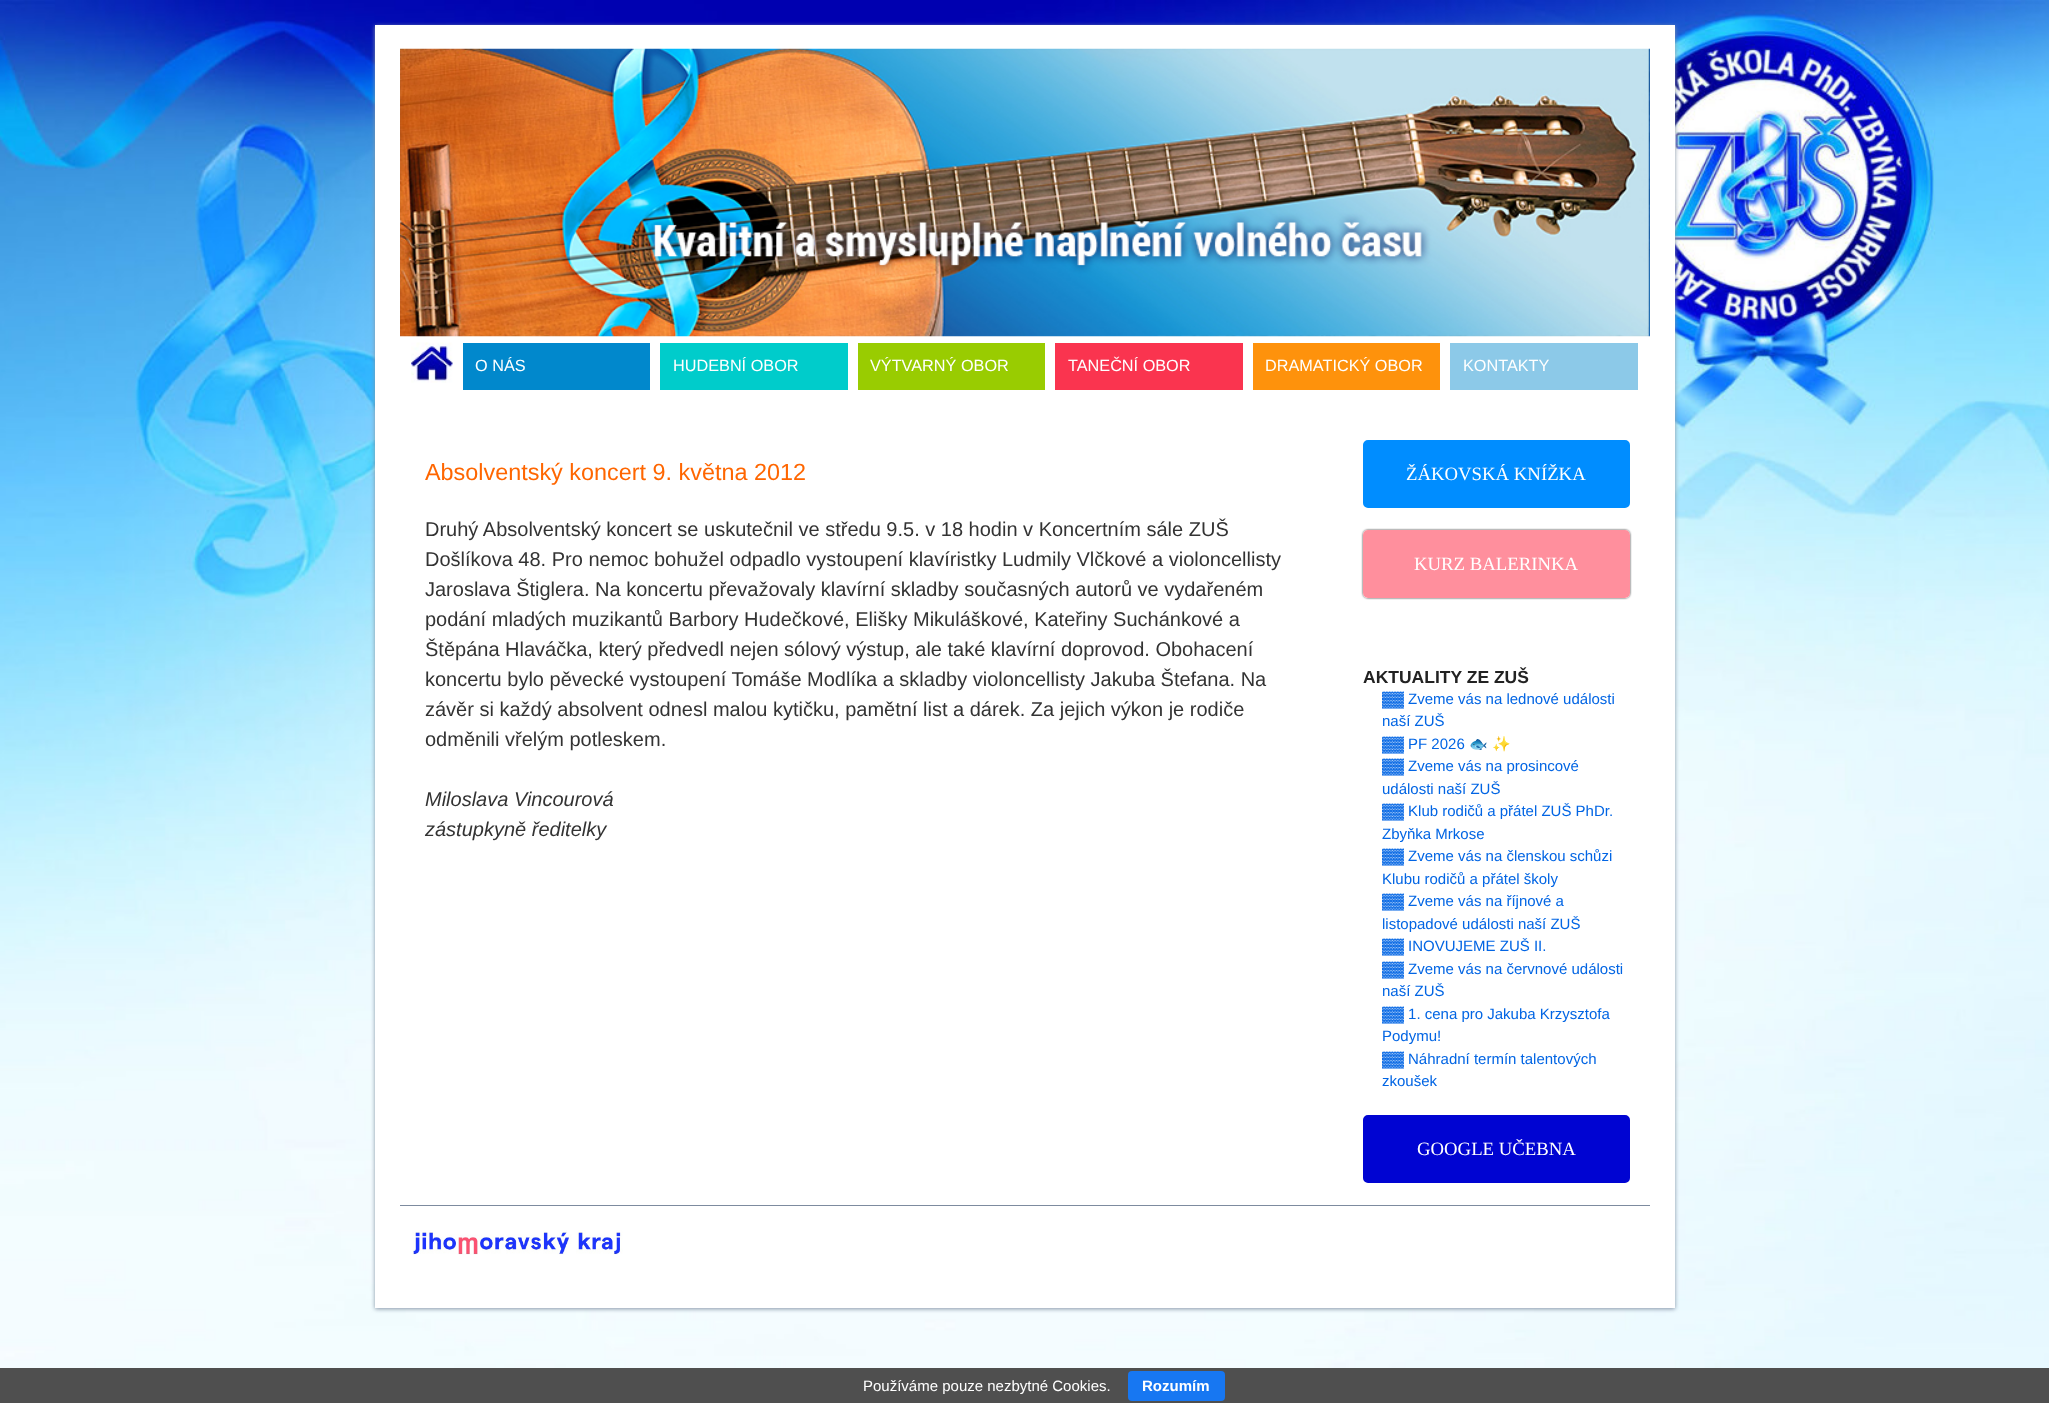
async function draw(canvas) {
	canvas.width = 2049;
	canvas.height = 1403;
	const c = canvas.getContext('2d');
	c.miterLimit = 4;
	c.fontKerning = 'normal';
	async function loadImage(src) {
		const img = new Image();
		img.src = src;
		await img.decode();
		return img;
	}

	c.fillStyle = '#fff';
	c.fillRect(0, 0, 2049, 1403);
	c.drawImage(await loadImage('img1.png'), 0, 0, 2049, 1368);
	c.fillStyle = '#8493a6';
	c.filter = 'blur(2px)';
	c.beginPath();
	c.rect(375, 26, 1300, 1283);
	c.fill();
	c.filter = 'none';
	c.fillStyle = '#fff';
	c.fillRect(375, 25, 1300, 1283);
	c.drawImage(await loadImage('img2.png'), 400, 48, 1250, 289);
	c.drawImage(await loadImage('img3.png'), 411, 342, 42, 41);
	c.fillStyle = '#0188cc';
	c.fillRect(463, 343, 187, 47);
	c.font = '16.25px Liberation Sans';
	c.fillStyle = '#fff';
	c.fillText('O NÁS', 475, 371);
	c.fillStyle = '#00cccb';
	c.fillRect(660, 343, 188, 47);
	c.fillStyle = '#fff';
	c.fillText('HUDEBNÍ OBOR', 673, 371);
	c.fillStyle = '#99cc01';
	c.fillRect(858, 343, 187, 47);
	c.fillStyle = '#fff';
	c.fillText('VÝTVARNÝ OBOR', 870, 371);
	c.fillStyle = '#fa344f';
	c.fillRect(1055, 343, 188, 47);
	c.fillStyle = '#fff';
	c.fillText('TANEČNÍ OBOR', 1068, 371);
	c.fillStyle = '#fe920c';
	c.fillRect(1253, 343, 187, 47);
	c.fillStyle = '#fff';
	c.fillText('DRAMATICKÝ OBOR', 1265, 371);
	c.fillStyle = '#8cc9e8';
	c.fillRect(1450, 343, 188, 47);
	c.fillStyle = '#fff';
	c.fillText('KONTAKTY', 1463, 371);
	c.font = '23.4px Liberation Sans';
	c.fillStyle = '#f60';
	c.fillText('Absolventský koncert 9. května 2012', 425, 480);
	c.font = '20px Liberation Sans';
	c.fillStyle = '#333';
	for (const [text, x, y] of [
		['Druhý Absolventský koncert se uskutečnil ve středu 9.5. v 18 hodin v Koncertním sále ZUŠ', 425, 536],
		['Došlíkova 48. Pro nemoc bohužel odpadlo vystoupení klavíristky Ludmily Vlčkové a violoncellisty', 425, 566],
		['Jaroslava Štiglera. Na koncertu převažovaly klavírní skladby současných autorů ve vydařeném', 425, 596],
		['podání mladých muzikantů Barbory Hudečkové, Elišky Mikuláškové, Kateřiny Suchánkové a', 425, 626],
		['Štěpána Hlaváčka, který předvedl nejen sólový výstup, ale také klavírní doprovod. Obohacení', 425, 656],
		['koncertu bylo pěvecké vystoupení Tomáše Modlíka a skladby violoncellisty Jakuba Štefana. Na', 425, 686],
		['závěr si každý absolvent odnesl malou kytičku, pamětní list a dárek. Za jejich výkon je rodiče', 425, 716],
		['odměnili vřelým potleskem.', 425, 746],
	]) {
		c.fillText(text, x, y);
	}
	c.font = 'italic 20px Liberation Sans';
	c.fillText('Miloslava Vincourová', 425, 806);
	c.fillText('zástupkyně ředitelky', 425, 836);
	c.fillStyle = '#008dff';
	c.beginPath();
	c.roundRect(1364.5, 441.5, 264, 65, 3.5);
	c.fill();
	c.strokeStyle = '#008dff';
	c.lineWidth = 3;
	c.stroke();
	c.font = '18.75px Liberation Serif';
	c.fillStyle = '#fff';
	c.fillText('ŽÁKOVSKÁ KNÍŽKA', 1406, 480);
	c.save();
	c.beginPath();
	c.moveTo(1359, 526);
	c.lineTo(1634, 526);
	c.lineTo(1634, 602);
	c.lineTo(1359, 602);
	c.closePath();
	c.moveTo(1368, 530);
	c.lineTo(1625, 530);
	c.bezierCurveTo(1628, 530, 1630, 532, 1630, 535);
	c.lineTo(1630, 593);
	c.bezierCurveTo(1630, 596, 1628, 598, 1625, 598);
	c.lineTo(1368, 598);
	c.bezierCurveTo(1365, 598, 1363, 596, 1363, 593);
	c.lineTo(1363, 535);
	c.bezierCurveTo(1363, 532, 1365, 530, 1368, 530);
	c.closePath();
	c.clip('evenodd');
	c.fillStyle = '#333';
	c.filter = 'blur(1px)';
	c.beginPath();
	c.roundRect(1363, 530, 267, 68, 5);
	c.fill();
	c.filter = 'none';
	c.restore();
	c.fillStyle = '#ff8f9d';
	c.beginPath();
	c.roundRect(1364.5, 531.5, 264, 65, 3.5);
	c.fill();
	c.strokeStyle = '#ff8f9d';
	c.stroke();
	c.fillStyle = '#fff';
	c.fillText('KURZ BALERINKA', 1414, 570);
	c.font = 'bold 17.5px Liberation Sans';
	c.fillStyle = '#222';
	c.fillText('AKTUALITY ZE ZUŠ', 1363, 683);
	c.font = '15px Liberation Sans';
	c.fillStyle = '#0265e4';
	for (const [text, x, y] of [
		['▓▓ Zveme vás na lednové události', 1382, 704],
		['naší ZUŠ', 1382, 726],
		['▓▓ PF 2026', 1382, 749],
	]) {
		c.fillText(text, x, y);
	}
	c.font = '15px Noto Color Emoji';
	c.fillText('🐟', 1469, 749);
	c.fillText('✨', 1492, 749);
	c.font = '15px Liberation Sans';
	for (const [text, x, y] of [
		['▓▓ Zveme vás na prosincové', 1382, 771],
		['události naší ZUŠ', 1382, 794],
		['▓▓ Klub rodičů a přátel ZUŠ PhDr.', 1382, 816],
		['Zbyňka Mrkose', 1382, 839],
		['▓▓ Zveme vás na členskou schůzi', 1382, 861],
		['Klubu rodičů a přátel školy', 1382, 884],
		['▓▓ Zveme vás na říjnové a', 1382, 906],
		['listopadové události naší ZUŠ', 1382, 929],
		['▓▓ INOVUJEME ZUŠ II.', 1382, 951],
		['▓▓ Zveme vás na červnové události', 1382, 974],
		['naší ZUŠ', 1382, 996],
		['▓▓ 1. cena pro Jakuba Krzysztofa', 1382, 1019],
		['Podymu!', 1382, 1041],
		['▓▓ Náhradní termín talentových', 1382, 1064],
		['zkoušek', 1382, 1086],
	]) {
		c.fillText(text, x, y);
	}
	c.fillStyle = '#0004d2';
	c.beginPath();
	c.roundRect(1364.5, 1116.5, 264, 65, 3.5);
	c.fill();
	c.strokeStyle = '#0004d2';
	c.stroke();
	c.font = '18.75px Liberation Serif';
	c.fillStyle = '#fff';
	c.fillText('GOOGLE UČEBNA', 1417, 1155);
	c.fillStyle = '#7d8b9f';
	c.fillRect(400, 1205, 1250, 1);
	c.drawImage(await loadImage('img4.png'), 412, 1230, 211, 25);
	c.fillStyle = '#4f4f4f';
	c.fillRect(0, 1368, 2049, 35);
	c.font = '15px Liberation Sans';
	c.fillStyle = '#fff';
	c.fillText('Používáme pouze nezbytné Cookies.', 863, 1391);
	c.fillStyle = '#1777f2';
	c.beginPath();
	c.roundRect(1128, 1371, 97, 30, 4);
	c.fill();
	c.font = 'bold 15px Liberation Sans';
	c.fillStyle = '#fff';
	c.fillText('Rozumím', 1142, 1391);
}

draw(document.querySelector('canvas'));
